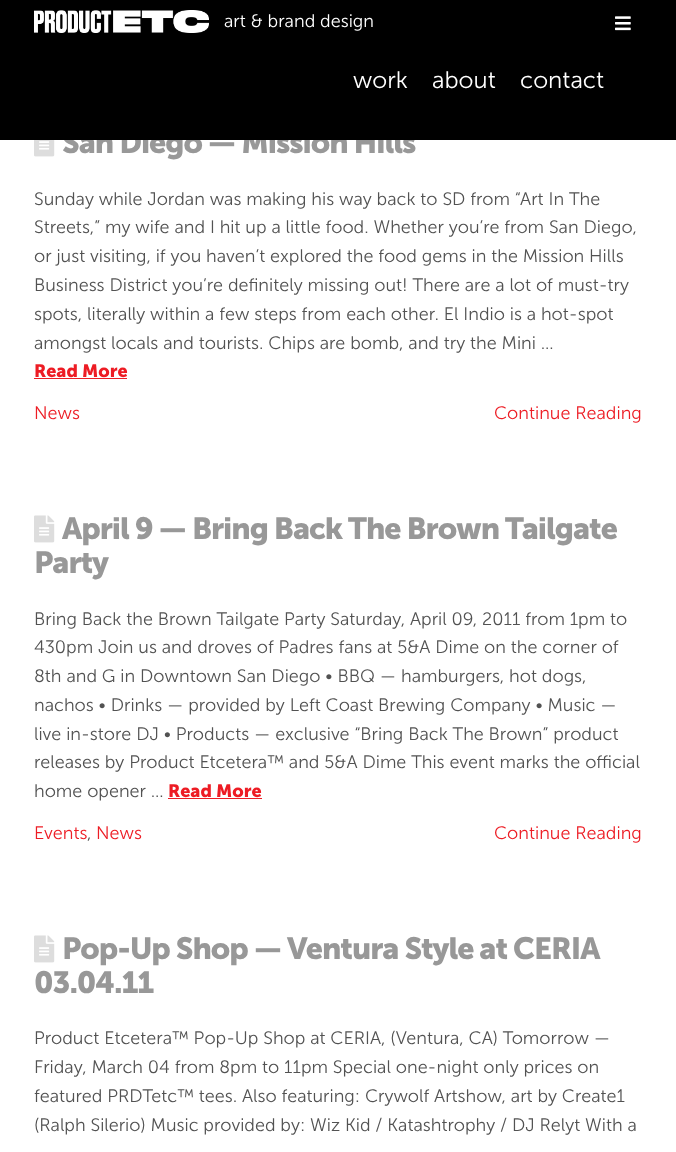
async function draw(canvas) {
	canvas.width = 676;
	canvas.height = 1152;
	const c = canvas.getContext('2d');
	c.miterLimit = 4;
	c.fontKerning = 'normal';
	async function loadImage(src) {
		const img = new Image();
		img.src = src;
		await img.decode();
		return img;
	}

	c.fillStyle = '#fff';
	c.fillRect(0, 0, 676, 1152);
	c.letterSpacing = '-1.05px';
	c.font = 'bold 30.6px "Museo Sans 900"';
	c.fillStyle = '#989898';
	c.fillText('San Diego — Mission Hills', 62, 153);
	c.fillStyle = '#000';
	c.fillRect(0, 0, 676, 140);
	c.drawImage(await loadImage('img1.png'), 34, 10, 175, 23);
	c.letterSpacing = '0px';
	c.font = '300 18px "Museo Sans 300"';
	c.fillStyle = '#fff';
	c.fillText('art & brand design', 224, 27);
	c.drawImage(await loadImage('img2.png'), 615, 16, 16, 15);
	c.font = '300 24px "Museo Sans 300"';
	for (const [text, x, y] of [
		['work', 353, 88],
		['about', 432, 88],
		['contact', 520, 88],
	]) {
		c.fillText(text, x, y);
	}
	c.drawImage(await loadImage('img3.png'), 34, 140, 21, 17);
	c.font = '300 18px "Museo Sans 300"';
	c.fillStyle = '#525252';
	for (const [text, x, y] of [
		['Sunday while Jordan was making his way back to SD from “Art In The', 34, 205],
		['Streets,” my wife and I hit up a little food. Whether you’re from San Diego,', 34, 233],
		['or just visiting, if you haven’t explored the food gems in the Mission Hills', 34, 262],
		['Business District you’re definitely missing out! There are a lot of must-try', 34, 291],
		['spots, literally within a few steps from each other. El Indio is a hot-spot', 34, 320],
		['amongst locals and tourists. Chips are bomb, and try the Mini …', 34, 349],
	]) {
		c.fillText(text, x, y);
	}
	c.font = 'bold 18px "Museo Sans 900"';
	c.fillStyle = '#ed1c24';
	c.fillText('Read More', 34, 377);
	c.fillRect(34, 378, 93, 1);
	c.font = '300 18px "Museo Sans 300"';
	c.fillText('News', 34, 419);
	c.fillText('Continue Reading', 494, 419);
	c.drawImage(await loadImage('img4.png'), 34, 515, 21, 28);
	c.letterSpacing = '-1.05px';
	c.font = 'bold 30.6px "Museo Sans 900"';
	c.fillStyle = '#989898';
	c.fillText('April 9 — Bring Back The Brown Tailgate', 62, 539);
	c.fillText('Party', 34, 573);
	c.letterSpacing = '0px';
	c.font = '300 18px "Museo Sans 300"';
	c.fillStyle = '#525252';
	for (const [text, x, y] of [
		['Bring Back the Brown Tailgate Party Saturday, April 09, 2011 from 1pm to', 34, 625],
		['430pm Join us and droves of Padres fans at 5&A Dime on the corner of', 34, 653],
		['8th and G in Downtown San Diego • BBQ — hamburgers, hot dogs,', 34, 682],
		['nachos • Drinks — provided by Left Coast Brewing Company • Music —', 34, 711],
		['live in-store DJ • Products — exclusive “Bring Back The Brown” product', 34, 740],
		['releases by Product Etcetera™ and 5&A Dime This event marks the official', 34, 768],
		['home opener …', 34, 797],
	]) {
		c.fillText(text, x, y);
	}
	c.font = 'bold 18px "Museo Sans 900"';
	c.fillStyle = '#ed1c24';
	c.fillText('Read More', 168, 797);
	c.fillRect(168, 798, 94, 1);
	c.font = '300 18px "Museo Sans 300"';
	c.fillText('Events', 34, 839);
	c.fillStyle = '#525252';
	c.fillText(',', 87, 839);
	c.fillStyle = '#ed1c24';
	c.fillText('News', 96, 839);
	c.fillText('Continue Reading', 494, 839);
	c.drawImage(await loadImage('img4.png'), 34, 935, 21, 28);
	c.letterSpacing = '-1.05px';
	c.font = 'bold 30.6px "Museo Sans 900"';
	c.fillStyle = '#989898';
	c.fillText('Pop-Up Shop — Ventura Style at CERIA', 62, 959);
	c.fillText('03.04.11', 34, 993);
	c.letterSpacing = '0px';
	c.font = '300 18px "Museo Sans 300"';
	c.fillStyle = '#525252';
	for (const [text, x, y] of [
		['Product Etcetera™ Pop-Up Shop at CERIA, (Ventura, CA) Tomorrow —', 34, 1044],
		['Friday, March 04 from 8pm to 11pm Special one-night only prices on', 34, 1073],
		['featured PRDTetc™ tees. Also featuring: Crywolf Artshow, art by Create1', 34, 1102],
		['(Ralph Silerio) Music provided by: Wiz Kid / Katashtrophy / DJ Relyt With a', 34, 1131],
	]) {
		c.fillText(text, x, y);
	}
}

draw(document.querySelector('canvas'));
